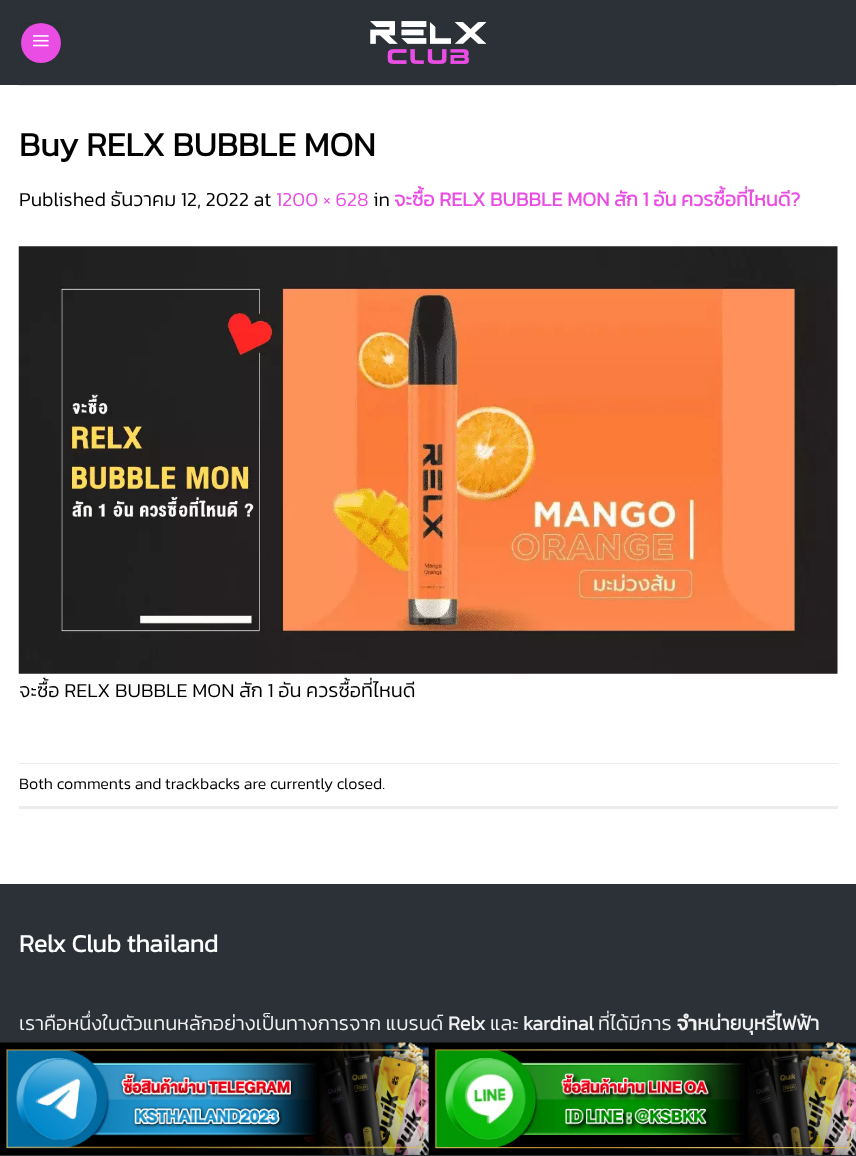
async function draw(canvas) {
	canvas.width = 856;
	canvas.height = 1156;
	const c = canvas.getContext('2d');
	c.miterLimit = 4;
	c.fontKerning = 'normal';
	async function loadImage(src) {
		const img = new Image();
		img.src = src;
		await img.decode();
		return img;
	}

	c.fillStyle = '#fff';
	c.fillRect(0, 0, 856, 1156);
	c.fillStyle = '#2c3137';
	c.fillRect(0, 0, 856, 85);
	c.fillStyle = '#e94de3';
	c.beginPath();
	c.arc(41, 43, 20, 0, 2 * Math.PI);
	c.fill();
	c.strokeStyle = '#0000000d';
	c.strokeRect(21.5, 23.5, 39, 39);
	c.drawImage(await loadImage('img1.png'), 32, 35, 17, 12);
	c.drawImage(await loadImage('img2.png'), 370, 21, 117, 43);
	c.fillStyle = '#e6e6e6';
	c.fillRect(19, 85, 819, 1);
	c.font = 'bold 34px Kanit';
	c.fillStyle = '#000';
	c.fillText('Buy RELX BUBBLE MON', 19, 156);
	c.font = '300 20px Kanit';
	c.fillText('Published ธันวาคม 12, 2022 at', 19, 206);
	c.fillStyle = '#e94de3';
	c.fillText('1200 × 628', 276, 206);
	c.fillStyle = '#000';
	c.fillText('in', 373, 206);
	c.font = 'bold 20px Kanit';
	c.fillStyle = '#e94de3';
	c.fillText('จะซื้อ RELX BUBBLE MON สัก 1 อัน ควรซื้อที่ไหนดี?', 394, 206);
	c.drawImage(await loadImage('img3.png'), 18, 246, 820, 428);
	c.font = '300 20px Kanit';
	c.fillStyle = '#000';
	c.fillText('จะซื้อ RELX BUBBLE MON สัก 1 อัน ควรซื้อที่ไหนดี', 19, 697);
	c.fillStyle = '#ececec';
	c.fillRect(19, 763, 819, 1);
	c.fillRect(19, 806, 819, 3);
	c.font = '300 16px Kanit';
	c.fillStyle = '#000';
	c.fillText('Both comments and trackbacks are currently closed.', 19, 789);
	c.fillStyle = '#2c3137';
	c.fillRect(0, 885, 856, 271);
	c.fillStyle = '#2a2f34';
	c.fillRect(0, 884, 856, 1);
	c.font = 'bold 25px Kanit';
	c.fillStyle = '#fff';
	c.fillText('Relx Club thailand', 19, 952);
	c.font = '300 20px Kanit';
	c.fillStyle = '#f1f1f1';
	c.fillText('เราคือหนึ่งในตัวแทนหลักอย่างเป็นทางการจาก แบรนด์', 19, 1030);
	c.font = 'bold 20px Kanit';
	c.fillText('Relx', 448, 1030);
	c.font = '300 20px Kanit';
	c.fillText('และ', 490, 1030);
	c.font = 'bold 20px Kanit';
	c.fillText('kardinal', 523, 1030);
	c.font = '300 20px Kanit';
	c.fillText('ที่ได้มีการ', 598, 1030);
	c.font = 'bold 20px Kanit';
	c.fillText('จำหน่ายบุหรี่ไฟฟ้า', 677, 1030);
	c.drawImage(await loadImage('img4.png'), 0, 1042, 429, 113);
	c.drawImage(await loadImage('img5.png'), 428, 1042, 428, 113);
}

draw(document.querySelector('canvas'));
